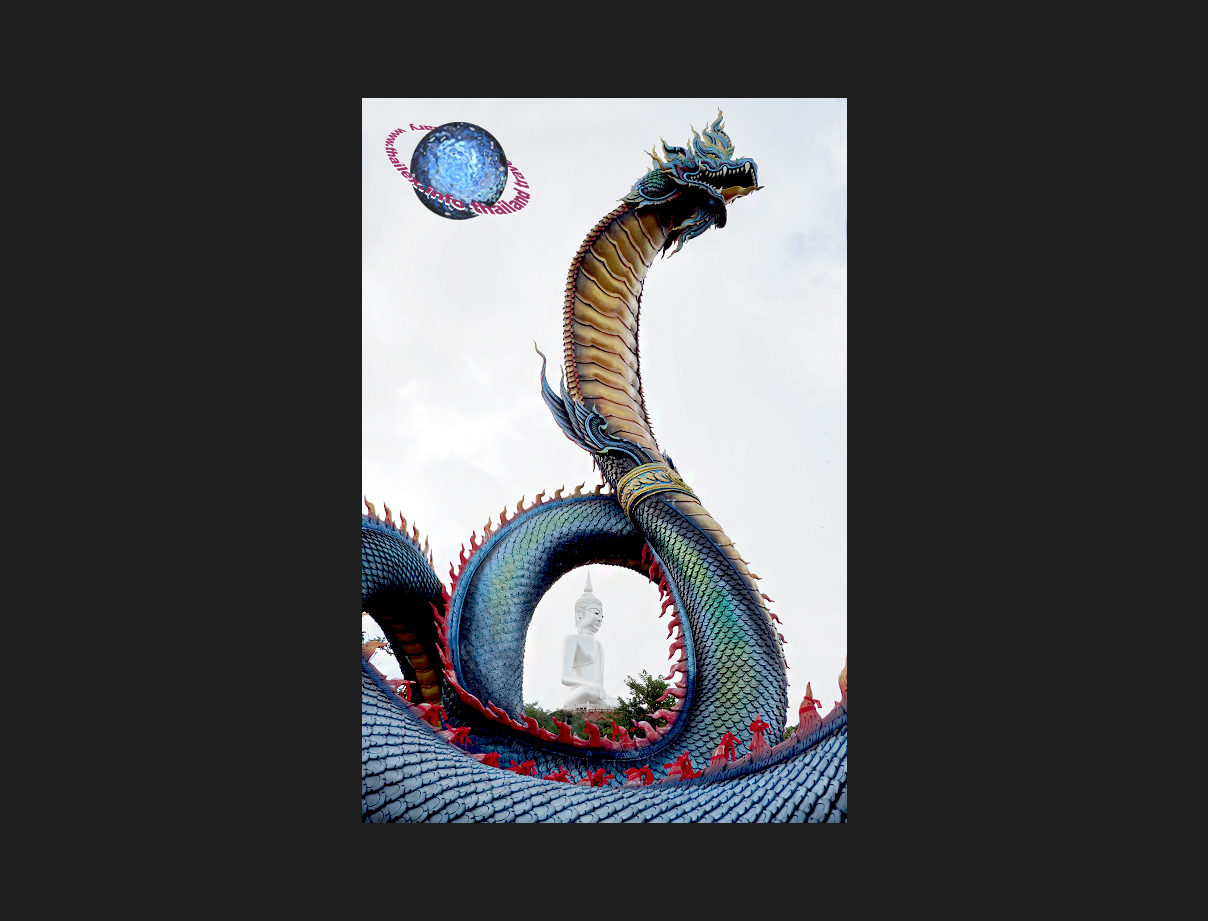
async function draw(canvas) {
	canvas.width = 1208;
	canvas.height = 921;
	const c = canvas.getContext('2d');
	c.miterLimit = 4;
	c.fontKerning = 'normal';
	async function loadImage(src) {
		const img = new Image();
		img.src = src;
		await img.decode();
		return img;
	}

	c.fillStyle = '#1e1e1e';
	c.fillRect(0, 0, 1208, 921);
	c.drawImage(await loadImage('img1.png'), 362, 98, 485, 725);
}

draw(document.querySelector('canvas'));
